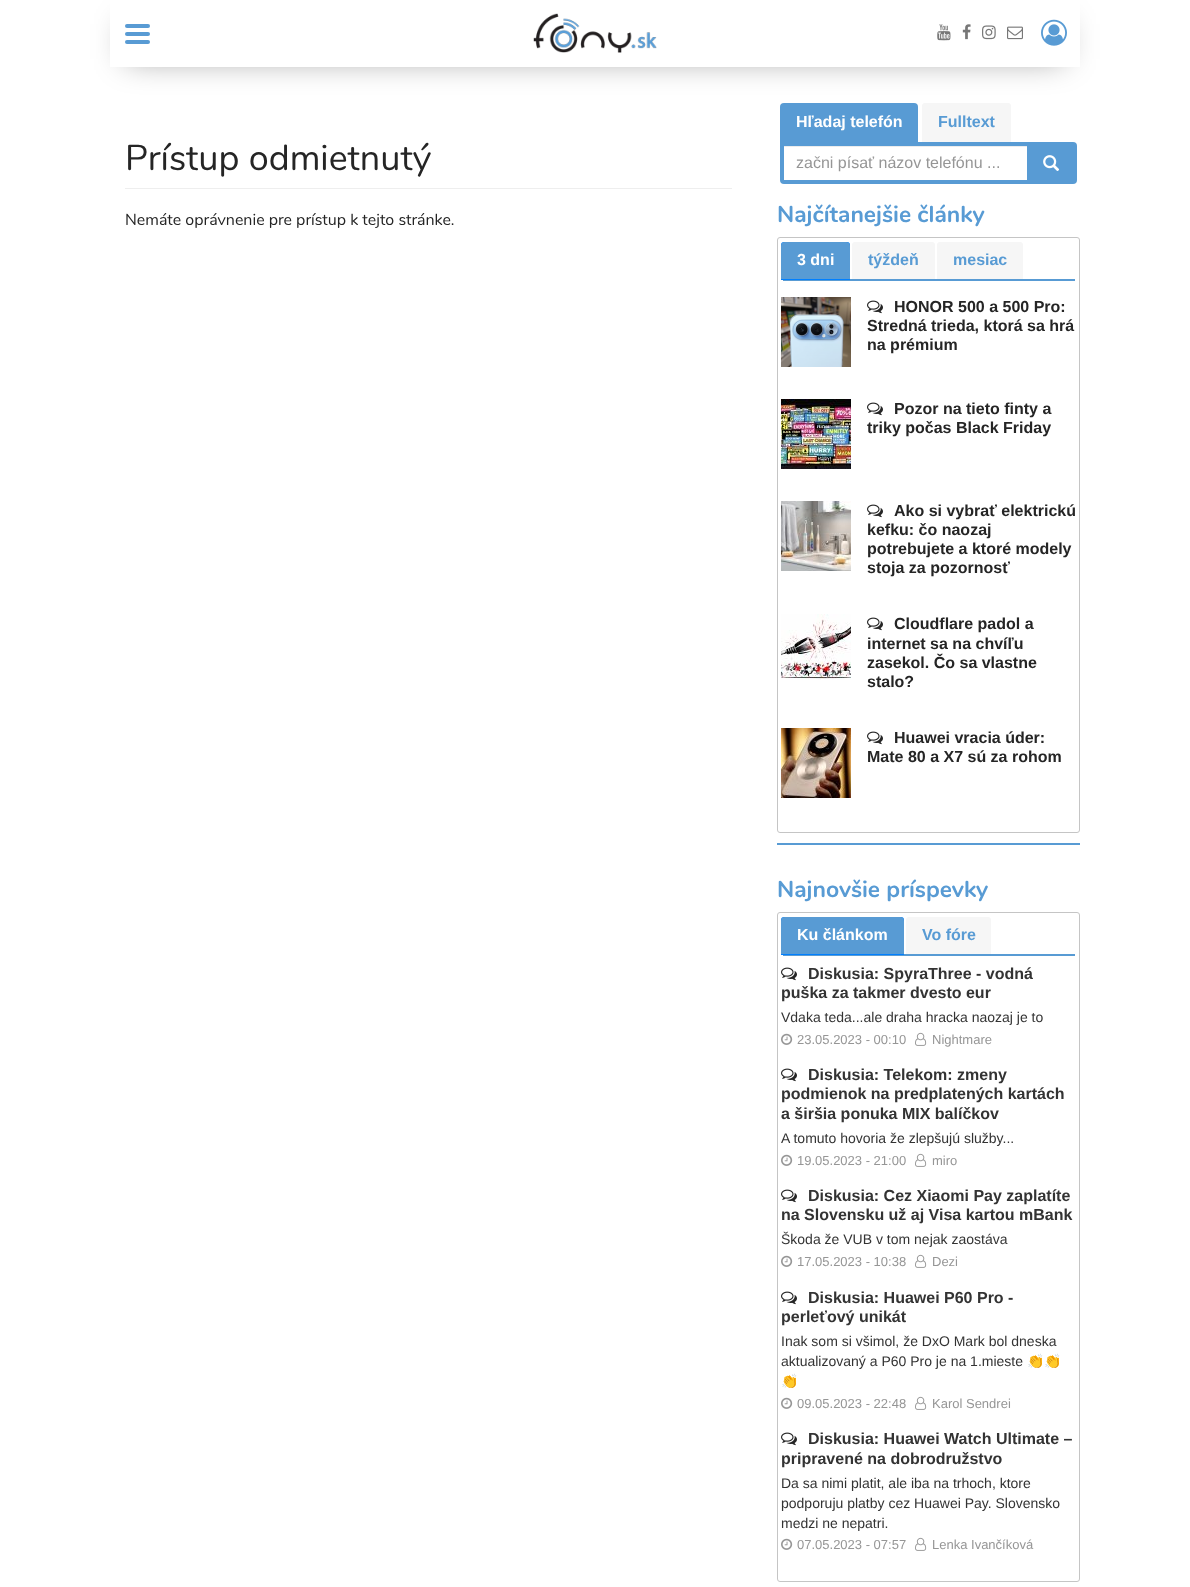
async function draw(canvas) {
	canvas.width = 1190;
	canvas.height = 1587;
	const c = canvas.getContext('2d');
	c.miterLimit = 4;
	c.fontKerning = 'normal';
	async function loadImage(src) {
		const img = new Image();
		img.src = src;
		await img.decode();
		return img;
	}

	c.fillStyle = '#fff';
	c.fillRect(0, 0, 1190, 1587);
	c.save();
	c.beginPath();
	c.moveTo(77, 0);
	c.lineTo(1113, 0);
	c.lineTo(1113, 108);
	c.lineTo(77, 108);
	c.closePath();
	c.moveTo(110, 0);
	c.lineTo(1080, 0);
	c.lineTo(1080, 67);
	c.lineTo(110, 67);
	c.closePath();
	c.clip('evenodd');
	c.fillStyle = '#0000006b';
	c.filter = 'blur(16px)';
	c.beginPath();
	c.rect(126, 24, 938, 35);
	c.fill();
	c.filter = 'none';
	c.restore();
	c.fillStyle = '#589bd4';
	c.beginPath();
	c.roundRect(125, 24, 25, 4, 2);
	c.fill();
	c.beginPath();
	c.roundRect(125, 32, 25, 4, 2);
	c.fill();
	c.beginPath();
	c.roundRect(125, 40, 25, 4, 2);
	c.fill();
	c.drawImage(await loadImage('img1.png'), 533, 13, 124, 40);
	c.drawImage(await loadImage('img2.png'), 937, 24, 14, 17);
	c.drawImage(await loadImage('img3.png'), 962, 24, 9, 16);
	c.drawImage(await loadImage('img4.png'), 982, 25, 14, 15);
	c.drawImage(await loadImage('img5.png'), 1007, 26, 16, 14);
	c.drawImage(await loadImage('img6.png'), 1041, 19, 26, 27);
	c.fillStyle = '#eee';
	c.fillRect(125, 188, 607, 1);
	c.font = '36px Nunito';
	c.fillStyle = '#252525';
	c.fillText('Prístup odmietnutý', 125, 170);
	c.font = '16px Nunito';
	c.fillText('Nemáte oprávnenie pre prístup k tejto stránke.', 125, 225);
	c.fillStyle = '#589bd4';
	c.beginPath();
	c.roundRect(780, 103, 138, 39, [4, 4, 0, 0]);
	c.fill();
	c.font = 'bold 16px Liberation Sans';
	c.fillStyle = '#fff';
	c.fillText('Hľadaj telefón', 796, 127);
	c.fillStyle = '#f6f6f6';
	c.beginPath();
	c.roundRect(922, 103, 89, 39, [3, 3, 0, 0]);
	c.fill();
	c.fillStyle = '#589bd4';
	c.fillText('Fulltext', 938, 127);
	c.beginPath();
	c.roundRect(780, 142, 297, 42, [0, 4, 4, 4]);
	c.fill();
	c.fillStyle = '#fff';
	c.fillRect(784, 147, 243, 33);
	c.fillStyle = '#ececec';
	c.fillRect(784, 146, 243, 1);
	c.font = '16px Liberation Sans';
	c.fillStyle = '#969696';
	c.fillText('začni písať názov telefónu ...', 796, 168);
	c.drawImage(await loadImage('img7.png'), 1043, 155, 17, 16);
	c.fillStyle = '#589bd4';
	c.fillRect(777, 843, 303, 2);
	c.font = 'bold 23px Nunito';
	c.fillText('Najčítanejšie články', 777, 222);
	c.beginPath();
	c.roundRect(777.5, 237.5, 302, 595, 2.5);
	c.strokeStyle = '#c5c5c5';
	c.stroke();
	c.fillRect(783, 279, 292, 2);
	c.fillStyle = '#007fff';
	c.beginPath();
	c.roundRect(781, 242, 69, 38, [3, 3, 0, 0]);
	c.fill();
	c.fillStyle = '#589bd4';
	c.beginPath();
	c.roundRect(781, 242, 69, 37, [4, 4, 0, 0]);
	c.fill();
	c.font = 'bold 16px Liberation Sans';
	c.fillStyle = '#fff';
	c.fillText('3 dni', 797, 265);
	c.fillStyle = '#f6f6f6';
	c.beginPath();
	c.roundRect(852, 242, 83, 37, [3, 3, 0, 0]);
	c.fill();
	c.fillStyle = '#589bd4';
	c.fillText('týždeň', 868, 265);
	c.fillStyle = '#f6f6f6';
	c.beginPath();
	c.roundRect(937, 242, 86, 37, [3, 3, 0, 0]);
	c.fill();
	c.fillStyle = '#589bd4';
	c.fillText('mesiac', 953, 265);
	c.drawImage(await loadImage('img8.png'), 781, 297, 70, 70);
	c.drawImage(await loadImage('img9.png'), 867, 300, 16, 14);
	c.fillStyle = '#252525';
	for (const [text, x, y] of [
		['HONOR 500 a 500 Pro:', 894, 312],
		['Stredná trieda, ktorá sa hrá', 867, 331],
		['na prémium', 867, 350],
	]) {
		c.fillText(text, x, y);
	}
	c.drawImage(await loadImage('img10.png'), 781, 399, 70, 70);
	c.drawImage(await loadImage('img9.png'), 867, 402, 16, 14);
	c.fillText('Pozor na tieto finty a', 894, 414);
	c.fillText('triky počas Black Friday', 867, 433);
	c.drawImage(await loadImage('img11.png'), 781, 501, 70, 70);
	c.drawImage(await loadImage('img9.png'), 867, 504, 16, 14);
	for (const [text, x, y] of [
		['Ako si vybrať elektrickú', 894, 516],
		['kefku: čo naozaj', 867, 535],
		['potrebujete a ktoré modely', 867, 554],
		['stoja za pozornosť', 867, 573],
	]) {
		c.fillText(text, x, y);
	}
	c.drawImage(await loadImage('img12.png'), 781, 614, 70, 66);
	c.drawImage(await loadImage('img9.png'), 867, 617, 16, 14);
	for (const [text, x, y] of [
		['Cloudflare padol a', 894, 629],
		['internet sa na chvíľu', 867, 649],
		['zasekol. Čo sa vlastne', 867, 668],
		['stalo?', 867, 687],
	]) {
		c.fillText(text, x, y);
	}
	c.drawImage(await loadImage('img13.png'), 781, 728, 70, 70);
	c.drawImage(await loadImage('img9.png'), 867, 731, 16, 14);
	c.fillText('Huawei vracia úder:', 894, 743);
	c.fillText('Mate 80 a X7 sú za rohom', 867, 762);
	c.font = 'bold 23px Nunito';
	c.fillStyle = '#589bd4';
	c.fillText('Najnovšie príspevky', 777, 897);
	c.beginPath();
	c.roundRect(777.5, 912.5, 302, 669, 2.5);
	c.stroke();
	c.fillRect(783, 954, 292, 2);
	c.fillStyle = '#007fff';
	c.beginPath();
	c.roundRect(781, 917, 123, 38, [3, 3, 0, 0]);
	c.fill();
	c.fillStyle = '#589bd4';
	c.beginPath();
	c.roundRect(781, 917, 123, 37, [4, 4, 0, 0]);
	c.fill();
	c.font = 'bold 16px Liberation Sans';
	c.fillStyle = '#fff';
	c.fillText('Ku článkom', 797, 940);
	c.fillStyle = '#f6f6f6';
	c.beginPath();
	c.roundRect(906, 917, 85, 37, [3, 3, 0, 0]);
	c.fill();
	c.fillStyle = '#589bd4';
	c.fillText('Vo fóre', 922, 940);
	c.drawImage(await loadImage('img9.png'), 781, 967, 16, 14);
	c.fillStyle = '#333';
	c.fillText('Diskusia: SpyraThree - vodná', 808, 979);
	c.fillText('puška za takmer dvesto eur', 781, 998);
	c.font = '14px Liberation Sans';
	c.fillText('Vdaka teda...ale draha hracka naozaj je to', 781, 1022);
	c.drawImage(await loadImage('img14.png'), 781, 1033, 12, 12);
	c.font = '13px Liberation Sans';
	c.fillStyle = '#969696';
	c.fillText('23.05.2023 - 00:10', 797, 1044);
	c.drawImage(await loadImage('img15.png'), 915, 1032, 12, 14);
	c.fillText('Nightmare', 932, 1044);
	c.drawImage(await loadImage('img9.png'), 781, 1068, 16, 14);
	c.font = 'bold 16px Liberation Sans';
	c.fillStyle = '#333';
	for (const [text, x, y] of [
		['Diskusia: Telekom: zmeny', 808, 1080],
		['podmienok na predplatených kartách', 781, 1099],
		['a širšia ponuka MIX balíčkov', 781, 1119],
	]) {
		c.fillText(text, x, y);
	}
	c.font = '14px Liberation Sans';
	c.fillText('A tomuto hovoria že zlepšujú služby...', 781, 1143);
	c.drawImage(await loadImage('img14.png'), 781, 1154, 12, 12);
	c.font = '13px Liberation Sans';
	c.fillStyle = '#969696';
	c.fillText('19.05.2023 - 21:00', 797, 1165);
	c.drawImage(await loadImage('img15.png'), 915, 1153, 12, 14);
	c.fillText('miro', 932, 1165);
	c.drawImage(await loadImage('img9.png'), 781, 1189, 16, 14);
	c.font = 'bold 16px Liberation Sans';
	c.fillStyle = '#333';
	c.fillText('Diskusia: Cez Xiaomi Pay zaplatíte', 808, 1201);
	c.fillText('na Slovensku už aj Visa kartou mBank', 781, 1220);
	c.font = '14px Liberation Sans';
	c.fillText('Škoda že VUB v tom nejak zaostáva', 781, 1244);
	c.drawImage(await loadImage('img14.png'), 781, 1255, 12, 12);
	c.font = '13px Liberation Sans';
	c.fillStyle = '#969696';
	c.fillText('17.05.2023 - 10:38', 797, 1266);
	c.drawImage(await loadImage('img15.png'), 915, 1254, 12, 14);
	c.fillText('Dezi', 932, 1266);
	c.drawImage(await loadImage('img9.png'), 781, 1291, 16, 14);
	c.font = 'bold 16px Liberation Sans';
	c.fillStyle = '#333';
	c.fillText('Diskusia: Huawei P60 Pro -', 808, 1303);
	c.fillText('perleťový unikát', 781, 1322);
	c.font = '14px Liberation Sans';
	c.fillText('Inak som si všimol, že DxO Mark bol dneska', 781, 1346);
	c.fillText('aktualizovaný a P60 Pro je na 1.mieste', 781, 1366);
	c.font = '14px Noto Color Emoji';
	c.fillText('👏👏', 1027, 1366);
	c.fillText('👏', 781, 1386);
	c.drawImage(await loadImage('img14.png'), 781, 1397, 12, 12);
	c.font = '13px Liberation Sans';
	c.fillStyle = '#969696';
	c.fillText('09.05.2023 - 22:48', 797, 1408);
	c.drawImage(await loadImage('img15.png'), 915, 1396, 12, 14);
	c.fillText('Karol Sendrei', 932, 1408);
	c.drawImage(await loadImage('img9.png'), 781, 1432, 16, 14);
	c.font = 'bold 16px Liberation Sans';
	c.fillStyle = '#333';
	c.fillText('Diskusia: Huawei Watch Ultimate –', 808, 1444);
	c.fillText('pripravené na dobrodružstvo', 781, 1464);
	c.font = '14px Liberation Sans';
	for (const [text, x, y] of [
		['Da sa nimi platit, ale iba na trhoch, ktore', 781, 1488],
		['podporuju platby cez Huawei Pay. Slovensko', 781, 1508],
		['medzi ne nepatri.', 781, 1528],
	]) {
		c.fillText(text, x, y);
	}
	c.drawImage(await loadImage('img14.png'), 781, 1538, 12, 12);
	c.font = '13px Liberation Sans';
	c.fillStyle = '#969696';
	c.fillText('07.05.2023 - 07:57', 797, 1549);
	c.drawImage(await loadImage('img15.png'), 915, 1537, 12, 14);
	c.fillText('Lenka Ivančíková', 932, 1549);
}

draw(document.querySelector('canvas'));
